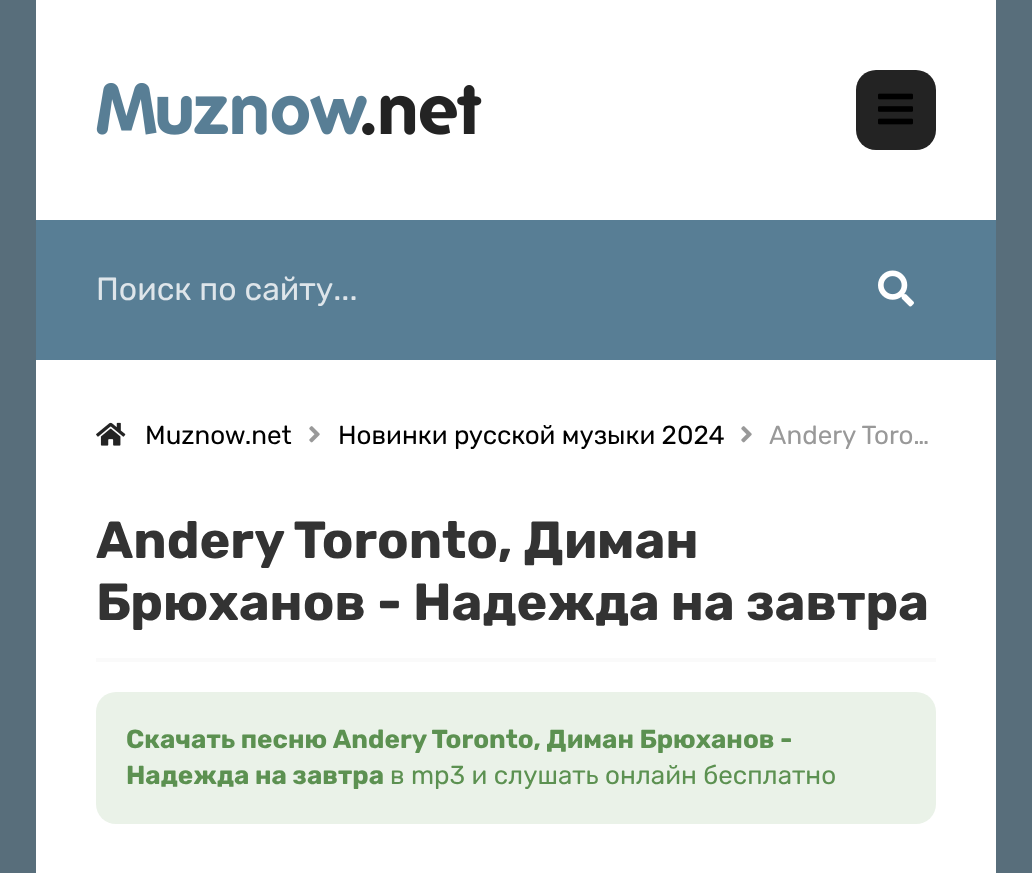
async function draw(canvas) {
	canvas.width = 1032;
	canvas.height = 873;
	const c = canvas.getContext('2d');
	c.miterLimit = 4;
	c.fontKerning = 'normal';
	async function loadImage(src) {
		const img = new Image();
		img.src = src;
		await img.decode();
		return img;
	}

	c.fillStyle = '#586e7b';
	c.fillRect(0, 0, 1032, 873);
	c.fillStyle = '#fff';
	c.fillRect(36, 0, 960, 873);
	c.drawImage(await loadImage('img1.png'), 96, 83, 386, 53);
	c.fillStyle = '#232323';
	c.beginPath();
	c.roundRect(856, 70, 80, 80, 20);
	c.fill();
	c.drawImage(await loadImage('img2.png'), 878, 93, 35, 32);
	c.fillStyle = '#587e95';
	c.fillRect(36, 220, 960, 140);
	c.font = '32px Rubik';
	c.fillStyle = '#dee5ea';
	c.fillText('Поиск по сайту...', 96, 300);
	c.drawImage(await loadImage('img3.png'), 878, 270, 36, 37);
	c.drawImage(await loadImage('img4.png'), 96, 422, 30, 24);
	c.font = '26px Rubik';
	c.fillStyle = '#000';
	c.fillText('Muznow.net', 145, 444);
	c.drawImage(await loadImage('img5.png'), 309, 426, 11, 17);
	c.fillText('Новинки русской музыки 2024', 338, 444);
	c.drawImage(await loadImage('img5.png'), 741, 426, 11, 17);
	c.fillStyle = '#999';
	c.fillText('Andery Toro…', 769, 444);
	c.fillStyle = '#fafafa';
	c.fillRect(96, 658, 840, 4);
	c.font = 'bold 52px Rubik';
	c.fillStyle = '#333';
	c.fillText('Andery Toronto, Диман', 96, 558);
	c.fillText('Брюханов - Надежда на завтра', 96, 620);
	c.fillStyle = '#eaf2e8';
	c.beginPath();
	c.roundRect(96, 692, 840, 132, 20);
	c.fill();
	c.font = 'bold 26px Rubik';
	c.fillStyle = '#5c9151';
	c.fillText('Скачать песню Andery Toronto, Диман Брюханов -', 126, 748);
	c.fillText('Надежда на завтра', 126, 784);
	c.font = '26px Rubik';
	c.fillText('в mp3 и слушать онлайн бесплатно', 390, 784);
}

draw(document.querySelector('canvas'));
